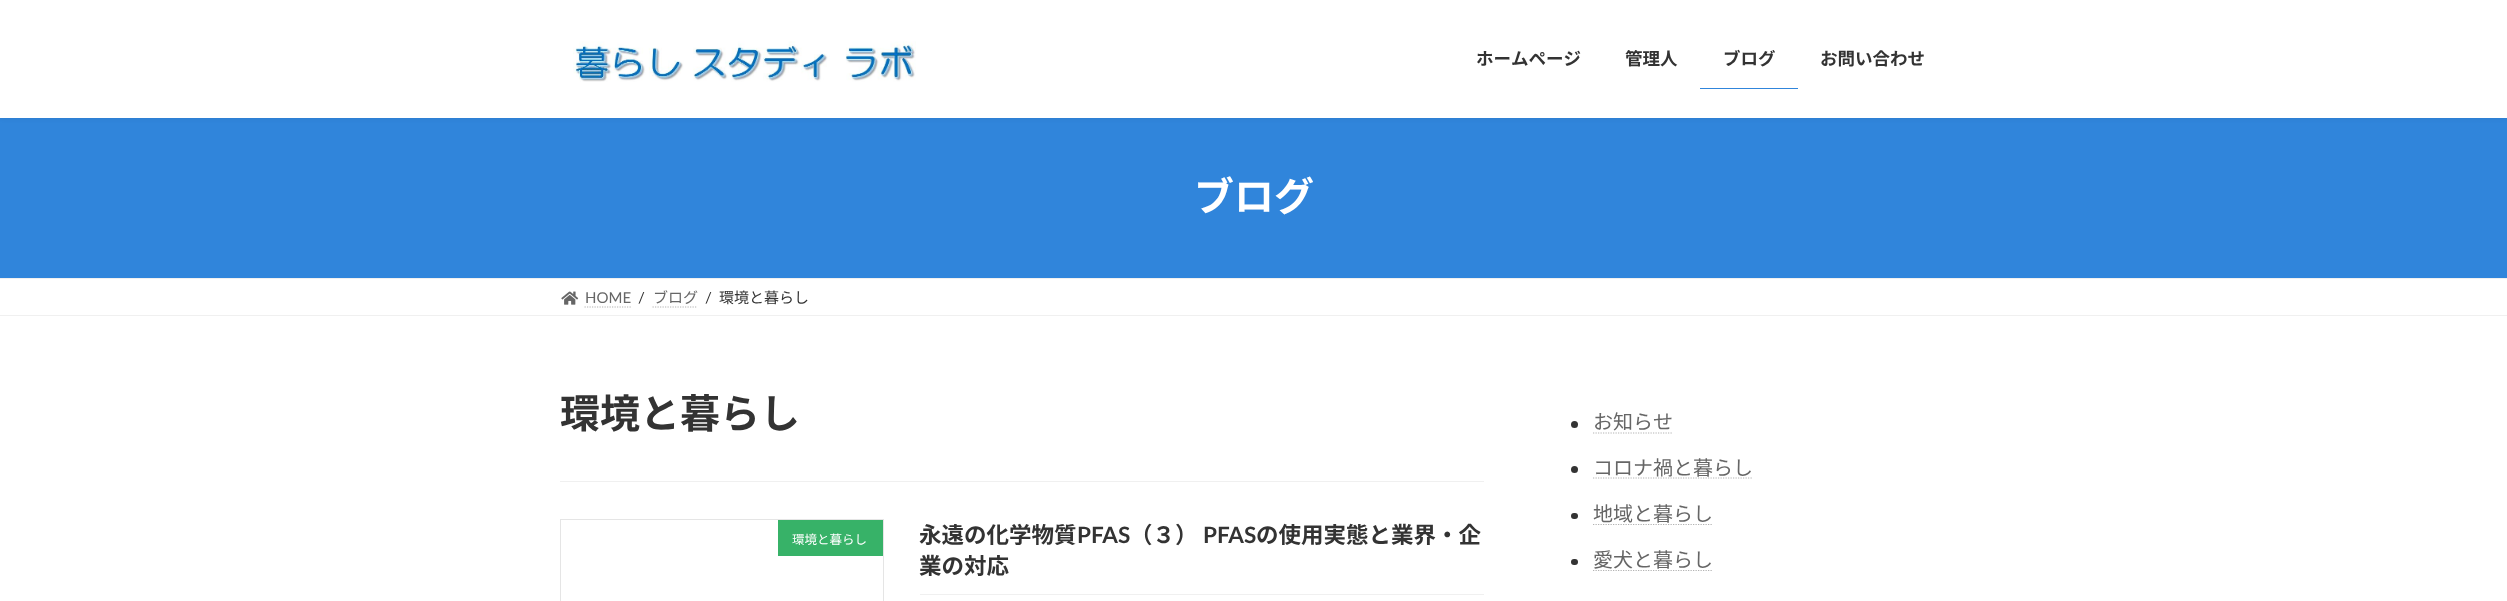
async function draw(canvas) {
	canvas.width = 2507;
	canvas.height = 601;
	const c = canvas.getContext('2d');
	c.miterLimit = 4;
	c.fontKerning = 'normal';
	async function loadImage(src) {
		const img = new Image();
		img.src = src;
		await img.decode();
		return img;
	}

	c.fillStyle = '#fff';
	c.fillRect(0, 0, 2507, 601);
	c.fillStyle = '#3085db';
	c.fillRect(0, 118, 2507, 160);
	c.fillStyle = '#0000000d';
	c.filter = 'blur(2px)';
	c.beginPath();
	c.rect(0, 1, 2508, 118);
	c.fill();
	c.filter = 'none';
	c.fillStyle = '#fff';
	c.fillRect(0, 0, 2507, 118);
	c.drawImage(await loadImage('img1.png'), 573, 41, 343, 41);
	c.font = 'bold 17.5px Noto Sans JP';
	c.fillStyle = '#333';
	for (const [text, x, y] of [
		['ホームページ', 1476, 65],
		['管理人', 1625, 65],
		['ブログ', 1723, 65],
	]) {
		c.fillText(text, x, y);
	}
	c.fillStyle = '#3085db';
	c.fillRect(1700, 88, 98, 1);
	c.fillStyle = '#333';
	c.fillText('お問い合わせ', 1820, 65);
	c.font = 'bold 40px Noto Sans JP';
	c.fillStyle = '#fff';
	c.fillText('ブログ', 1194, 211);
	c.fillStyle = '#f0f0f0';
	c.fillRect(0, 278, 2507, 1);
	c.fillRect(0, 315, 2507, 1);
	c.drawImage(await loadImage('img2.png'), 561, 291, 18, 14);
	c.font = '15px Lato';
	c.fillStyle = '#666';
	c.fillText('HOME', 585, 303);
	c.beginPath();
	c.moveTo(584.5, 307);
	c.lineTo(631, 307);
	c.strokeStyle = '#b3b3b3';
	c.lineWidth = 1.2;
	c.setLineDash([1.25, 1.25]);
	c.stroke();
	c.fillStyle = '#333';
	c.fillText('/', 638, 303);
	c.font = '15px Noto Sans JP';
	c.fillStyle = '#666';
	c.fillText('ブログ', 653, 303);
	c.beginPath();
	c.moveTo(652.5, 307);
	c.lineTo(697.5, 307);
	c.stroke();
	c.font = '15px Lato';
	c.fillStyle = '#333';
	c.fillText('/', 705, 303);
	c.font = '15px Noto Sans JP';
	c.fillText('環境と暮らし', 719, 303);
	c.font = 'bold 40px Noto Sans JP';
	c.fillText('環境と暮らし', 560, 428);
	c.fillStyle = '#f0f0f0';
	c.fillRect(560, 481, 924, 1);
	c.strokeStyle = '#e5e5e5';
	c.lineWidth = 1;
	c.setLineDash([]);
	c.strokeRect(560.5, 519.5, 323, 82);
	c.fillStyle = '#37b268';
	c.fillRect(778, 520, 105, 36);
	c.font = '12.5px Noto Sans JP';
	c.fillStyle = '#fff';
	c.fillText('環境と暮らし', 792, 544);
	c.fillStyle = '#f0f0f0';
	c.fillRect(920, 594, 564, 1);
	c.font = 'bold 22.5px Noto Sans JP';
	c.fillStyle = '#333';
	c.fillText('永遠の化学物質', 919, 543);
	c.font = 'bold 22.5px Lato';
	c.fillText('PFAS', 1077, 543);
	c.font = 'bold 22.5px Noto Sans JP';
	c.fillText('（３）', 1130, 543);
	c.font = 'bold 22.5px Lato';
	c.fillText('PFAS', 1203, 543);
	c.font = 'bold 22.5px Noto Sans JP';
	c.fillText('の使用実態と業界・企', 1256, 543);
	c.fillText('業の対応', 919, 574);
	c.beginPath();
	c.arc(1574.5, 424.5, 3.5, 0, 2 * Math.PI);
	c.fill();
	c.font = '20px Noto Sans JP';
	c.fillStyle = '#666';
	c.fillText('お知らせ', 1593, 429);
	c.beginPath();
	c.moveTo(1593, 433);
	c.lineTo(1672.5, 433);
	c.strokeStyle = '#b3b3b3';
	c.lineWidth = 1.2;
	c.setLineDash([1.25, 1.25]);
	c.stroke();
	c.fillStyle = '#333';
	c.beginPath();
	c.arc(1574.5, 469.5, 3.5, 0, 2 * Math.PI);
	c.fill();
	c.fillStyle = '#666';
	c.fillText('コロナ禍と暮らし', 1593, 475);
	c.beginPath();
	c.moveTo(1593, 478);
	c.lineTo(1753, 478);
	c.stroke();
	c.fillStyle = '#333';
	c.beginPath();
	c.roundRect(1571, 513, 7, 6, 3);
	c.fill();
	c.fillStyle = '#666';
	c.fillText('地域と暮らし', 1593, 521);
	c.beginPath();
	c.moveTo(1593, 524.5);
	c.lineTo(1713, 524.5);
	c.stroke();
	c.fillStyle = '#333';
	c.beginPath();
	c.roundRect(1571, 559, 7, 6, 3);
	c.fill();
	c.fillStyle = '#666';
	c.fillText('愛犬と暮らし', 1593, 567);
	c.beginPath();
	c.moveTo(1593, 570.5);
	c.lineTo(1713, 570.5);
	c.stroke();
}

draw(document.querySelector('canvas'));
